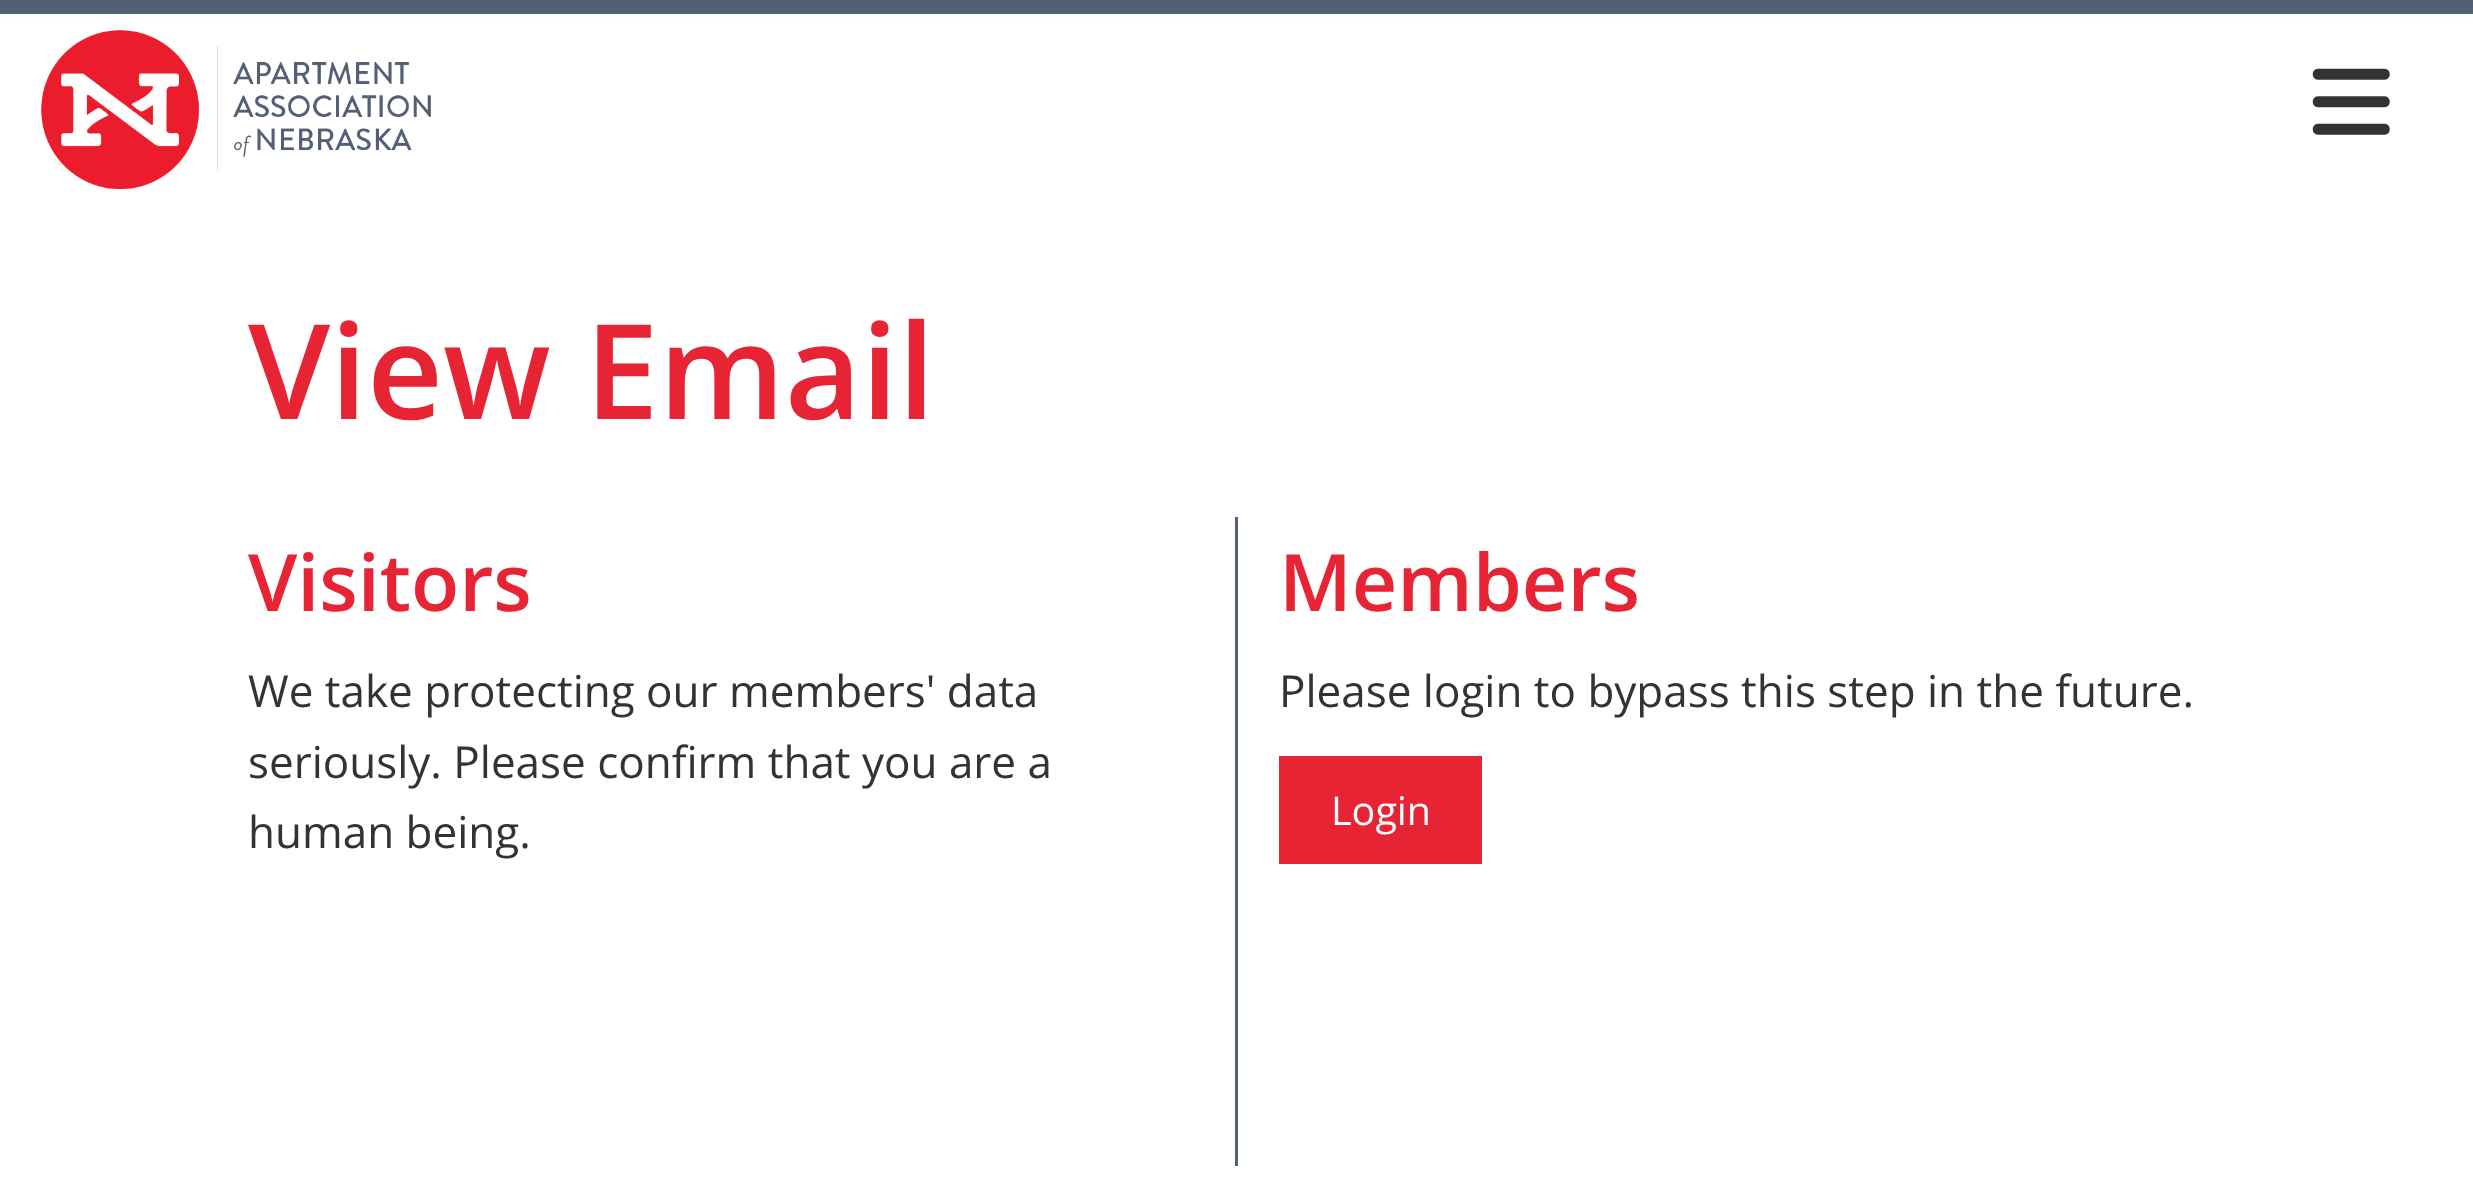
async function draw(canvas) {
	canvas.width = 2473;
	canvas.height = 1187;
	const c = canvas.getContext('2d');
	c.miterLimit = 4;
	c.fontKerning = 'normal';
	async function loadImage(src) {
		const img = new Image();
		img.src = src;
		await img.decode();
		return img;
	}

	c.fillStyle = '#fff';
	c.fillRect(0, 0, 2473, 1187);
	c.fillStyle = '#525f75';
	c.fillRect(0, 0, 2473, 14);
	c.drawImage(await loadImage('img1.png'), 41, 30, 390, 159);
	c.drawImage(await loadImage('img2.png'), 2312, 68, 78, 67);
	c.font = '600 132px Open Sans';
	c.fillStyle = '#e62433';
	c.fillText('View Email', 248, 419);
	c.fillStyle = '#525f75';
	c.fillRect(1235, 517, 3, 649);
	c.font = '600 79px Open Sans';
	c.fillStyle = '#e62433';
	c.fillText('Visitors', 248, 611);
	c.font = '44px Open Sans';
	c.fillStyle = '#333';
	for (const [text, x, y] of [
		['We take protecting our members\' data', 248, 707],
		['seriously. Please confirm that you are a', 248, 778],
		['human being.', 248, 848],
	]) {
		c.fillText(text, x, y);
	}
	c.font = '600 79px Open Sans';
	c.fillStyle = '#e62433';
	c.fillText('Members', 1279, 611);
	c.font = '44px Open Sans';
	c.fillStyle = '#333';
	c.fillText('Please login to bypass this step in the future.', 1279, 707);
	c.fillStyle = '#e62433';
	c.fillRect(1279, 756, 203, 108);
	c.font = '39.5px Open Sans';
	c.fillStyle = '#fff';
	c.fillText('Login', 1331, 825);
}

draw(document.querySelector('canvas'));
